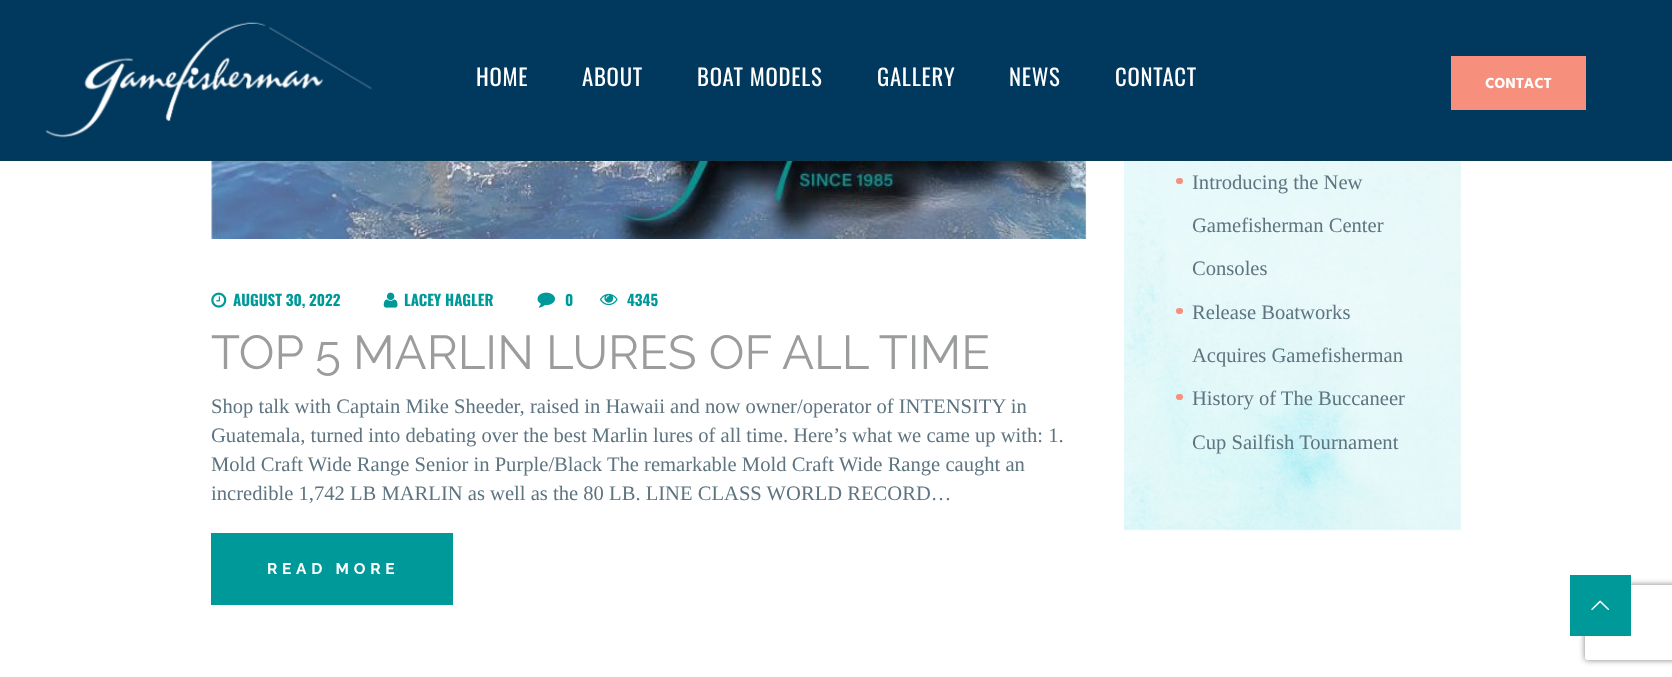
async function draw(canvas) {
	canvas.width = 1672;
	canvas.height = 677;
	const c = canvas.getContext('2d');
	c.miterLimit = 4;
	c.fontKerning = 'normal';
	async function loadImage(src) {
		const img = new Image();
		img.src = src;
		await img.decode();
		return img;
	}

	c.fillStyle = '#fff';
	c.fillRect(0, 0, 1672, 677);
	c.fillStyle = '#093a54';
	c.fillRect(0, 160, 1672, 1);
	c.fillStyle = '#01385e';
	c.fillRect(0, 0, 1672, 160);
	c.drawImage(await loadImage('img1.png'), 45, 22, 327, 116);
	c.letterSpacing = '0.75px';
	c.font = '22.75px Oswald';
	c.fillStyle = '#fff';
	for (const [text, x, y] of [
		['HOME', 476, 86],
		['ABOUT', 582, 86],
		['BOAT MODELS', 697, 86],
		['GALLERY', 877, 86],
		['NEWS', 1009, 86],
		['CONTACT', 1115, 86],
	]) {
		c.fillText(text, x, y);
	}
	c.fillStyle = '#f68f7c';
	c.fillRect(1451, 56, 135, 54);
	c.letterSpacing = '0px';
	c.font = 'bold 15px Hind';
	c.fillStyle = '#fff';
	c.fillText('CONTACT', 1485, 88);
	c.drawImage(await loadImage('img2.png'), 211, 161, 876, 78);
	c.drawImage(await loadImage('img3.png'), 211, 292, 16, 16);
	c.font = 'bold 15px Oswald';
	c.fillStyle = '#099';
	c.fillText('AUGUST 30, 2022', 233, 306);
	c.drawImage(await loadImage('img4.png'), 383, 292, 15, 16);
	c.fillText('LACEY HAGLER', 404, 306);
	c.drawImage(await loadImage('img5.png'), 537, 292, 18, 16);
	c.fillText('0', 565, 306);
	c.drawImage(await loadImage('img6.png'), 600, 293, 18, 13);
	c.fillText('4345', 627, 306);
	c.font = '47.5px Raleway';
	c.fillStyle = '#9b9d9c';
	c.fillText('TOP 5 MARLIN LURES OF ALL TIME', 211, 369);
	c.font = '20.6px Liberation Serif';
	c.fillStyle = '#5e7480';
	for (const [text, x, y] of [
		['Shop talk with Captain Mike Sheeder, raised in Hawaii and now owner/operator of INTENSITY in', 211, 413],
		['Guatemala, turned into debating over the best Marlin lures of all time. Here’s what we came up with: 1.', 211, 442],
		['Mold Craft Wide Range Senior in Purple/Black The remarkable Mold Craft Wide Range caught an', 211, 471],
		['incredible 1,742 LB MARLIN as well as the 80 LB. LINE CLASS WORLD RECORD…', 211, 500],
	]) {
		c.fillText(text, x, y);
	}
	c.fillStyle = '#099';
	c.fillRect(211, 533, 242, 72);
	c.letterSpacing = '4.75px';
	c.font = 'bold 15.5px Raleway';
	c.fillStyle = '#fff';
	c.fillText('READ MORE', 267, 574);
	c.drawImage(await loadImage('img7.png'), 1124, 161, 337, 370);
	c.fillStyle = '#f68f7c';
	c.beginPath();
	c.roundRect(1176, 178, 7, 6, 3);
	c.fill();
	c.letterSpacing = '0px';
	c.font = '20.6px Liberation Serif';
	c.fillStyle = '#5e7480';
	for (const [text, x, y] of [
		['Introducing the New', 1192, 189],
		['Gamefisherman Center', 1192, 232],
		['Consoles', 1192, 275],
	]) {
		c.fillText(text, x, y);
	}
	c.fillStyle = '#f68f7c';
	c.beginPath();
	c.roundRect(1176, 308, 7, 6, 3);
	c.fill();
	c.fillStyle = '#5e7480';
	c.fillText('Release Boatworks', 1192, 319);
	c.fillText('Acquires Gamefisherman', 1192, 362);
	c.fillStyle = '#f68f7c';
	c.beginPath();
	c.roundRect(1176, 394, 7, 6, 3);
	c.fill();
	c.fillStyle = '#5e7480';
	c.fillText('History of The Buccaneer', 1192, 405);
	c.fillText('Cup Sailfish Tournament', 1192, 449);
	c.save();
	c.beginPath();
	c.moveTo(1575, 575);
	c.lineTo(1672, 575);
	c.lineTo(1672, 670);
	c.lineTo(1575, 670);
	c.closePath();
	c.moveTo(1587.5, 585);
	c.lineTo(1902.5, 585);
	c.bezierCurveTo(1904, 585, 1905, 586, 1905, 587.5);
	c.lineTo(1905, 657.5);
	c.bezierCurveTo(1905, 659, 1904, 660, 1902.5, 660);
	c.lineTo(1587.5, 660);
	c.bezierCurveTo(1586, 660, 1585, 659, 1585, 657.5);
	c.lineTo(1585, 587.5);
	c.bezierCurveTo(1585, 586, 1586, 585, 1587.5, 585);
	c.closePath();
	c.clip('evenodd');
	c.fillStyle = '#808080';
	c.filter = 'blur(3px)';
	c.beginPath();
	c.roundRect(1585, 585, 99, 75, 2.5);
	c.fill();
	c.filter = 'none';
	c.restore();
	c.fillStyle = '#099';
	c.fillRect(1570, 575, 61, 61);
	c.drawImage(await loadImage('img8.png'), 1591, 600, 18, 10);
}

draw(document.querySelector('canvas'));
